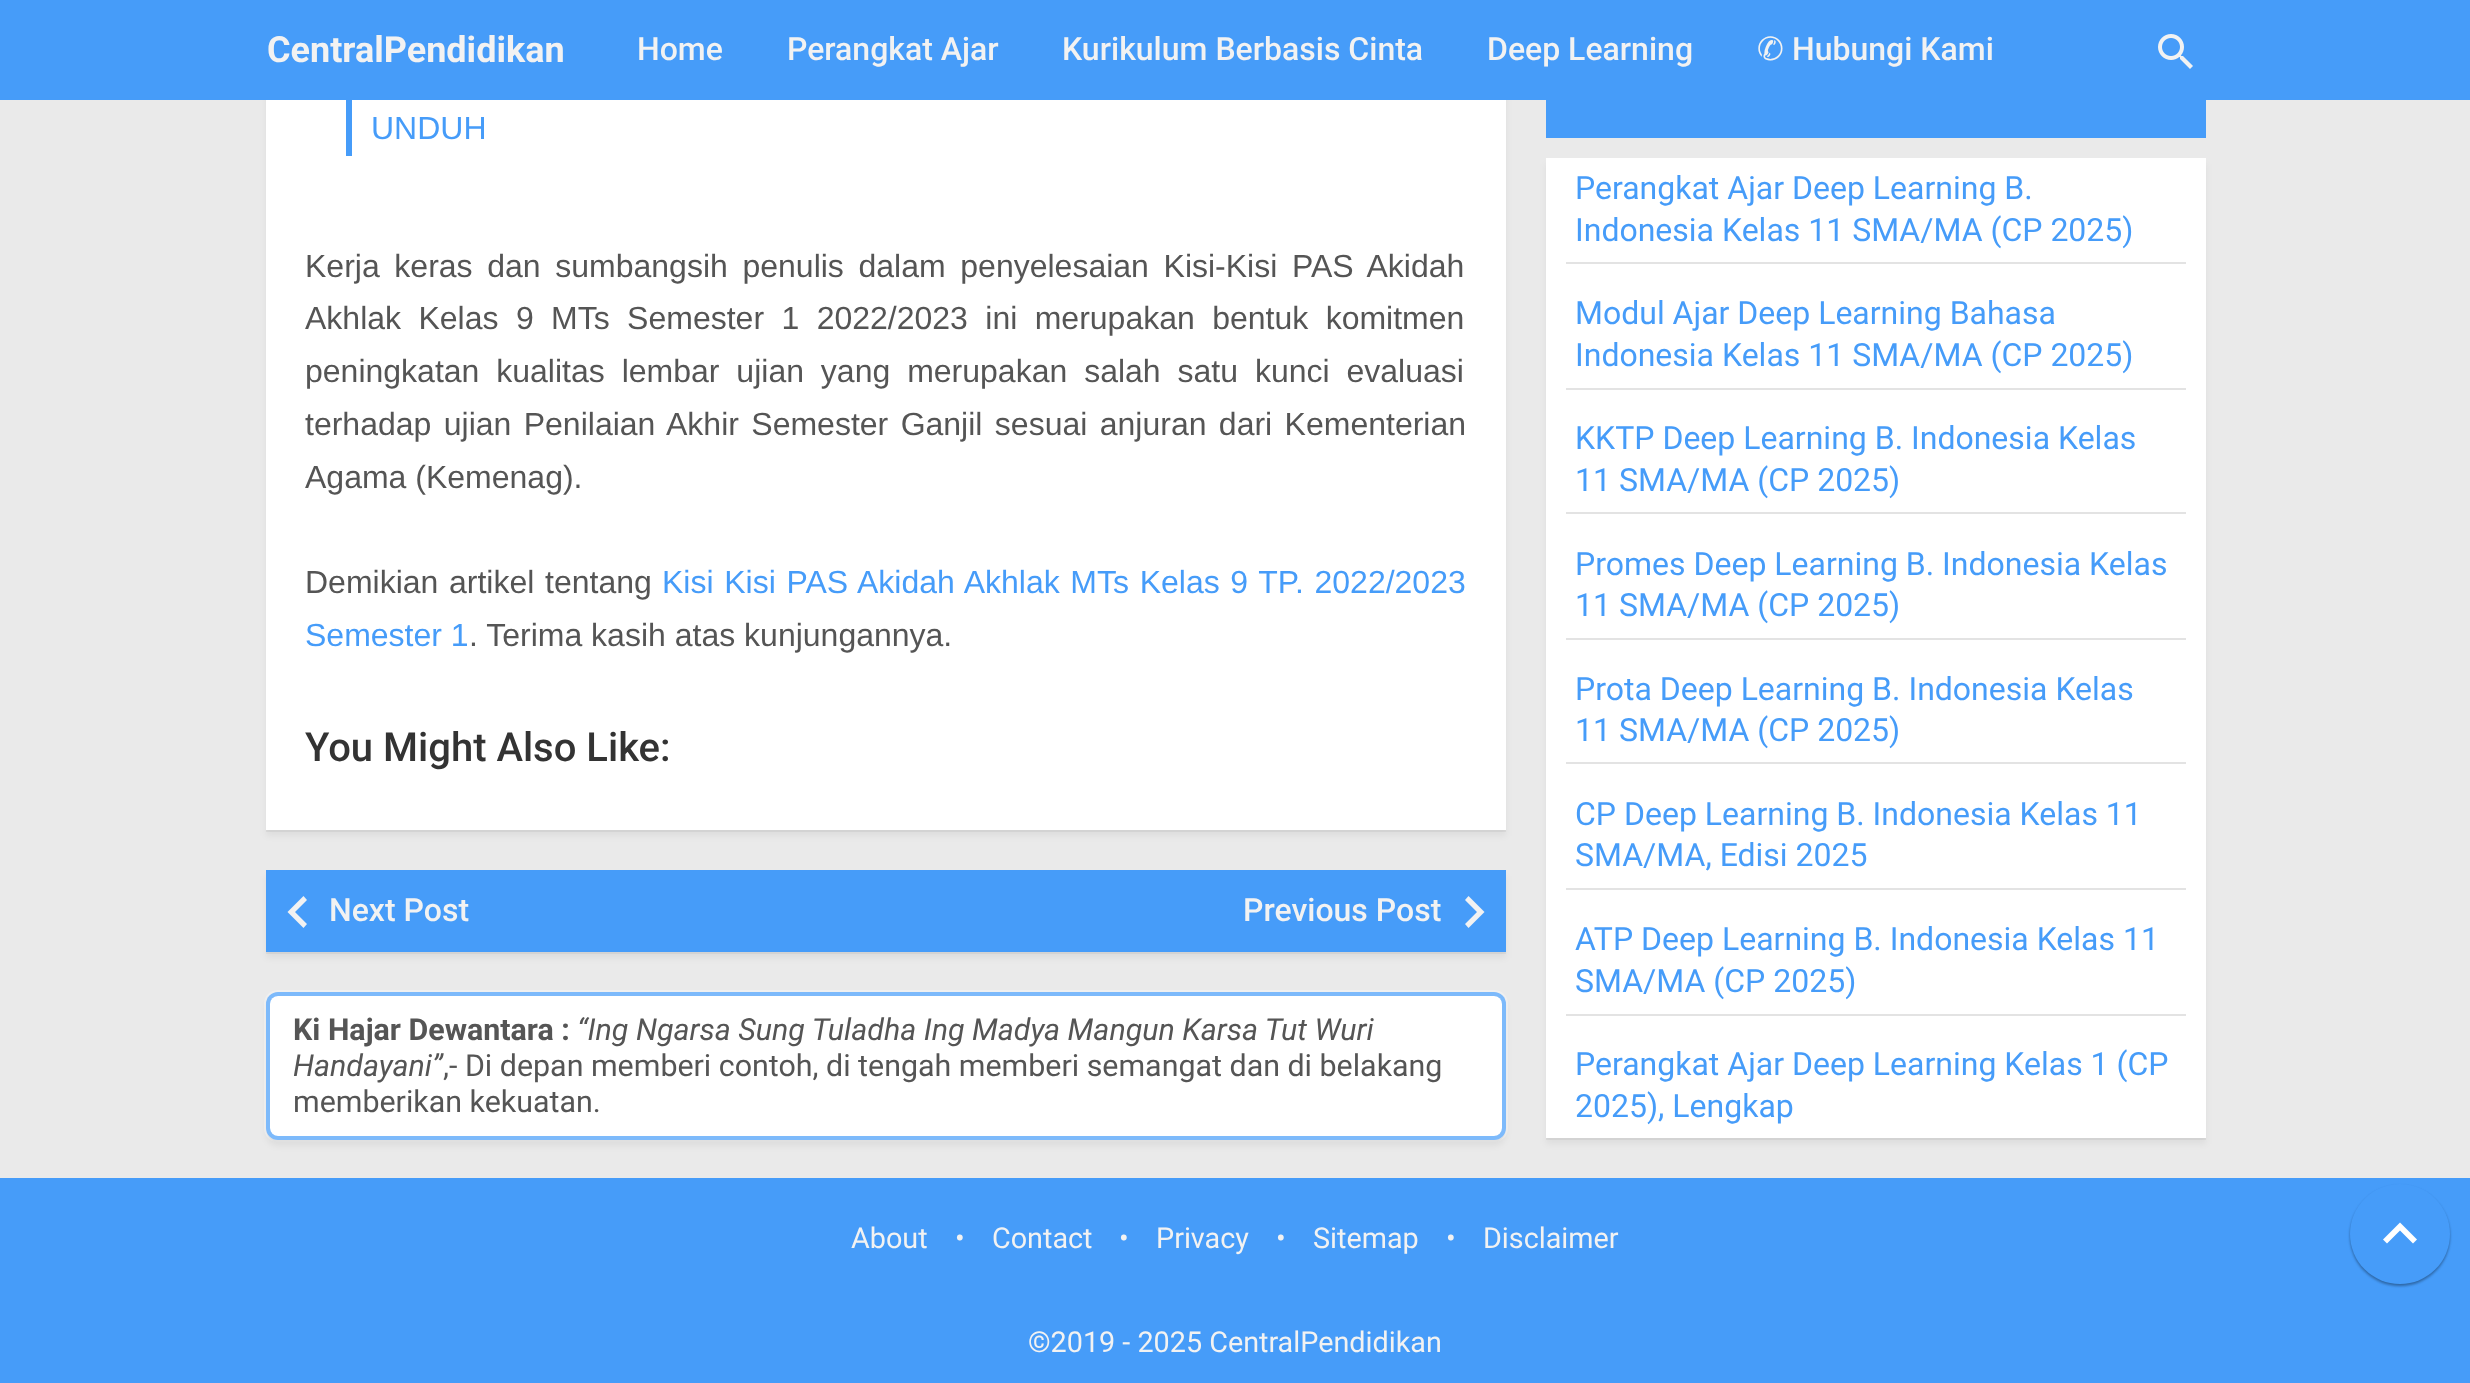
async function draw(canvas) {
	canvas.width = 2470;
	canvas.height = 1383;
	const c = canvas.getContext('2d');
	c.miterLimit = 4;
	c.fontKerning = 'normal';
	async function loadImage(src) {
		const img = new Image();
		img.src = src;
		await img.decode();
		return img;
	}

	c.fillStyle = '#eaeaea';
	c.fillRect(0, 0, 2470, 1383);
	c.fillStyle = '#0000000d';
	c.filter = 'blur(3px)';
	c.beginPath();
	c.rect(266, -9, 1240, 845);
	c.fill();
	c.filter = 'none';
	c.fillStyle = '#469cf9';
	c.fillRect(0, 0, 2470, 100);
	c.font = 'bold 36px Roboto';
	c.fillStyle = '#f2f2f2';
	c.fillText('CentralPendidikan', 267, 62);
	c.font = '500 32px Roboto';
	for (const [text, x, y] of [
		['Home', 637, 60],
		['Perangkat Ajar', 787, 60],
		['Kurikulum Berbasis Cinta', 1062, 60],
		['Deep Learning', 1487, 60],
	]) {
		c.fillText(text, x, y);
	}
	c.font = '32px DejaVu Sans';
	c.fillText('✆', 1757, 60);
	c.font = '500 32px Roboto';
	c.fillText('Hubungi Kami', 1792, 60);
	c.drawImage(await loadImage('img1.png'), 2158, 34, 35, 35);
	for (const [x, y, w, h, color] of [
		[266, 830, 1240, 2, '#0000000d'],
		[266, 100, 1240, 730, '#fff'],
		[346, 100, 6, 56, '#469cf9'],
	]) {
		c.fillStyle = color;
		c.fillRect(x, y, w, h);
	}
	c.font = '32px Liberation Sans';
	c.fillText('UNDUH', 371, 139);
	c.wordSpacing = '5.75px';
	c.fillStyle = '#555';
	c.fillText('Kerja keras dan sumbangsih penulis dalam penyelesaian Kisi-Kisi PAS Akidah', 305, 277);
	c.wordSpacing = '8.5px';
	c.fillText('Akhlak Kelas 9 MTs Semester 1 2022/2023 ini merupakan bentuk komitmen', 305, 329);
	c.wordSpacing = '8px';
	c.fillText('peningkatan kualitas lembar ujian yang merupakan salah satu kunci evaluasi', 305, 382);
	c.wordSpacing = '3.5px';
	c.fillText('terhadap ujian Penilaian Akhir Semester Ganjil sesuai anjuran dari Kementerian', 305, 435);
	c.wordSpacing = '0px';
	c.fillText('Agama (Kemenag).', 305, 488);
	c.wordSpacing = '1.75px';
	c.fillText('Demikian artikel tentang', 305, 593);
	c.fillStyle = '#469cf9';
	c.fillText('Kisi Kisi PAS Akidah Akhlak MTs Kelas 9 TP. 2022/2023', 662, 593);
	c.wordSpacing = '0px';
	c.fillText('Semester 1', 305, 646);
	c.fillStyle = '#555';
	c.fillText('. Terima kasih atas kunjungannya.', 469, 646);
	c.font = '500 40px Roboto';
	c.fillStyle = '#333';
	c.fillText('You Might Also Like:', 305, 761);
	c.fillStyle = '#0000000d';
	c.filter = 'blur(3px)';
	c.beginPath();
	c.rect(266, 876, 1240, 82);
	c.fill();
	c.filter = 'none';
	c.fillRect(266, 952, 1240, 2);
	c.fillStyle = '#469cf9';
	c.fillRect(266, 870, 1240, 82);
	c.fillStyle = '#f2f2f2';
	c.beginPath();
	c.moveTo(307, 924);
	c.lineTo(295, 912);
	c.lineTo(307, 900);
	c.lineTo(303.5, 896);
	c.lineTo(287.5, 912);
	c.lineTo(303.5, 928);
	c.closePath();
	c.fill();
	c.font = '500 32px Roboto';
	c.fillText('Next Post', 329, 921);
	c.fillText('Previous Post', 1243, 921);
	c.beginPath();
	c.moveTo(1465, 924);
	c.lineTo(1477, 912);
	c.lineTo(1465, 900);
	c.lineTo(1468.5, 896);
	c.lineTo(1484.5, 912);
	c.lineTo(1468.5, 928);
	c.closePath();
	c.fill();
	c.fillStyle = '#0000000d';
	c.filter = 'blur(3px)';
	c.beginPath();
	c.roundRect(266, 998, 1240, 148, 12);
	c.fill();
	c.filter = 'none';
	c.beginPath();
	c.moveTo(266, 1128);
	c.bezierCurveTo(266, 1135, 270, 1142, 278, 1142);
	c.lineTo(1494, 1142);
	c.bezierCurveTo(1502, 1142, 1506, 1135, 1506, 1128);
	c.bezierCurveTo(1506, 1135, 1501, 1140, 1494, 1140);
	c.lineTo(278, 1140);
	c.bezierCurveTo(271, 1140, 266, 1135, 266, 1128);
	c.closePath();
	c.fill();
	c.fillStyle = '#469cf9';
	c.beginPath();
	c.roundRect(266, 992, 1240, 148, 12);
	c.fill();
	c.beginPath();
	c.roundRect(267, 993, 1238, 146, 11);
	c.strokeStyle = '#ffffff4d';
	c.lineWidth = 6;
	c.stroke();
	c.fillStyle = '#fff';
	c.beginPath();
	c.roundRect(270, 996, 1232, 140, 8);
	c.fill();
	c.font = 'bold 30.4px Roboto';
	c.fillStyle = '#555';
	c.fillText('Ki Hajar Dewantara :', 293, 1040);
	c.font = 'italic 30.4px Roboto';
	c.fillText('“Ing Ngarsa Sung Tuladha Ing Madya Mangun Karsa Tut Wuri', 577, 1040);
	c.fillText('Handayani”', 293, 1076);
	c.font = '30.4px Roboto';
	c.fillText(',- Di depan memberi contoh, di tengah memberi semangat dan di belakang', 443, 1076);
	c.fillText('memberikan kekuatan.', 293, 1112);
	c.fillStyle = '#469cf9';
	c.fillRect(1546, 100, 660, 38);
	c.fillStyle = '#0000000d';
	c.filter = 'blur(3px)';
	c.beginPath();
	c.rect(1546, 164, 660, 980);
	c.fill();
	c.filter = 'none';
	for (const [x, y, w, h, color] of [
		[1546, 1138, 660, 2, '#0000000d'],
		[1546, 158, 660, 980, '#fff'],
		[1566, 262, 620, 2, '#e3e3e3'],
	]) {
		c.fillStyle = color;
		c.fillRect(x, y, w, h);
	}
	c.font = '32px Roboto';
	c.fillStyle = '#469cf9';
	c.fillText('Perangkat Ajar Deep Learning B.', 1575, 199);
	c.fillText('Indonesia Kelas 11 SMA/MA (CP 2025)', 1575, 241);
	c.fillStyle = '#e3e3e3';
	c.fillRect(1566, 388, 620, 2);
	c.fillStyle = '#469cf9';
	c.fillText('Modul Ajar Deep Learning Bahasa', 1575, 324);
	c.fillText('Indonesia Kelas 11 SMA/MA (CP 2025)', 1575, 366);
	c.fillStyle = '#e3e3e3';
	c.fillRect(1566, 512, 620, 2);
	c.fillStyle = '#469cf9';
	c.fillText('KKTP Deep Learning B. Indonesia Kelas', 1575, 449);
	c.fillText('11 SMA/MA (CP 2025)', 1575, 491);
	c.fillStyle = '#e3e3e3';
	c.fillRect(1566, 638, 620, 2);
	c.fillStyle = '#469cf9';
	c.fillText('Promes Deep Learning B. Indonesia Kelas', 1575, 575);
	c.fillText('11 SMA/MA (CP 2025)', 1575, 616);
	c.fillStyle = '#e3e3e3';
	c.fillRect(1566, 762, 620, 2);
	c.fillStyle = '#469cf9';
	c.fillText('Prota Deep Learning B. Indonesia Kelas', 1575, 700);
	c.fillText('11 SMA/MA (CP 2025)', 1575, 741);
	c.fillStyle = '#e3e3e3';
	c.fillRect(1566, 888, 620, 2);
	c.fillStyle = '#469cf9';
	c.fillText('CP Deep Learning B. Indonesia Kelas 11', 1575, 825);
	c.fillText('SMA/MA, Edisi 2025', 1575, 866);
	c.fillStyle = '#e3e3e3';
	c.fillRect(1566, 1014, 620, 2);
	c.fillStyle = '#469cf9';
	for (const [text, x, y] of [
		['ATP Deep Learning B. Indonesia Kelas 11', 1575, 950],
		['SMA/MA (CP 2025)', 1575, 992],
		['Perangkat Ajar Deep Learning Kelas 1 (CP', 1575, 1075],
		['2025), Lengkap', 1575, 1117],
	]) {
		c.fillText(text, x, y);
	}
	c.fillRect(0, 1178, 2470, 205);
	c.font = '28.75px Roboto';
	c.fillStyle = '#f2f2f2';
	for (const [text, x, y] of [
		['About', 851, 1248],
		['•', 955, 1248],
		['Contact', 992, 1248],
		['•', 1119, 1248],
		['Privacy', 1156, 1248],
		['•', 1276, 1248],
		['Sitemap', 1313, 1248],
		['•', 1446, 1248],
		['Disclaimer', 1483, 1248],
		['©2019 - 2025 CentralPendidikan', 1028, 1352],
	]) {
		c.fillText(text, x, y);
	}
	c.fillStyle = '#0000003d';
	c.filter = 'blur(1px)';
	c.beginPath();
	c.roundRect(2350, 1186, 100, 100, 50);
	c.fill();
	c.filter = 'none';
	c.fillStyle = '#0000001f';
	c.filter = 'blur(1.5px)';
	c.beginPath();
	c.roundRect(2350, 1186, 100, 100, 50);
	c.fill();
	c.filter = 'none';
	c.fillStyle = '#469cf9';
	c.beginPath();
	c.arc(2400, 1234, 50, 0, 2 * Math.PI);
	c.fill();
	c.fillStyle = '#fff';
	c.beginPath();
	c.moveTo(2387, 1243.5);
	c.lineTo(2400, 1230.5);
	c.lineTo(2413, 1243.5);
	c.lineTo(2417, 1239.5);
	c.lineTo(2400, 1222.5);
	c.lineTo(2383, 1239.5);
	c.closePath();
	c.fill();
}

draw(document.querySelector('canvas'));
